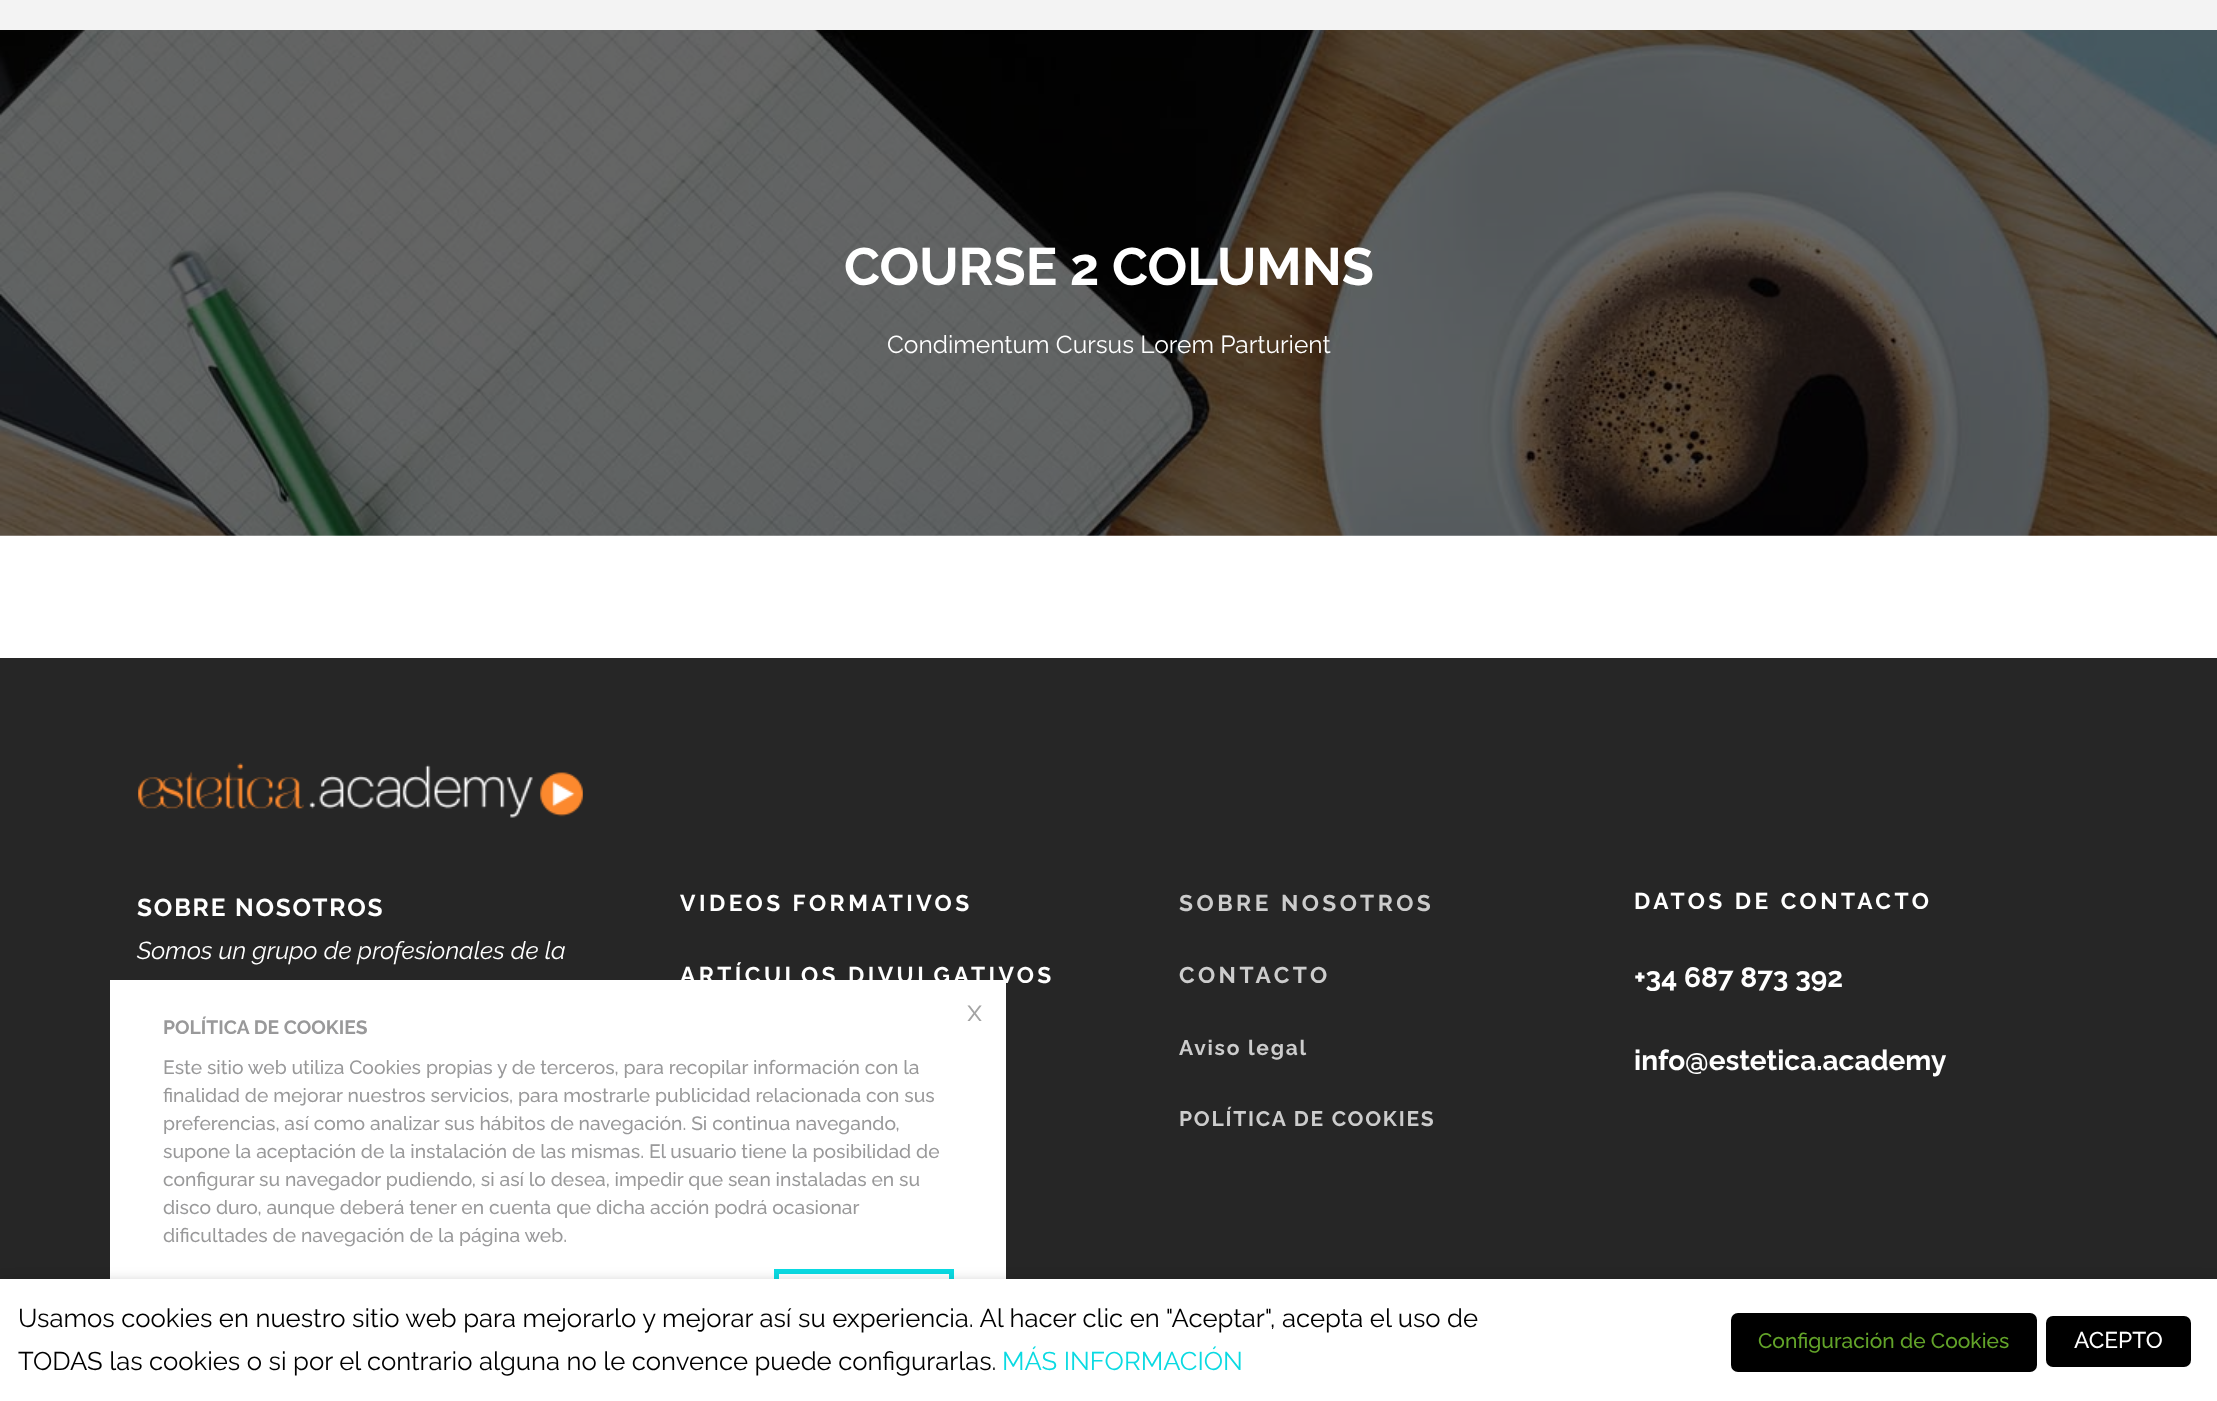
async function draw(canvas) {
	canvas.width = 2217;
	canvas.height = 1401;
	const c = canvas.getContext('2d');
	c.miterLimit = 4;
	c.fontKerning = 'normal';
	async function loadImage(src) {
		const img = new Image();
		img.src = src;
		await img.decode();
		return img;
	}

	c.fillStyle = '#fff';
	c.fillRect(0, 0, 2217, 1401);
	c.fillStyle = '#f3f3f3';
	c.fillRect(0, 0, 2217, 30);
	c.drawImage(await loadImage('img1.png'), 0, 30, 2217, 506);
	c.font = 'bold 52.5px Raleway';
	c.fillStyle = '#fff';
	c.fillText('COURSE 2 COLUMNS', 844, 285);
	c.font = '24.5px Raleway';
	c.fillText('Condimentum Cursus Lorem Parturient', 887, 353);
	c.fillStyle = '#262626';
	c.fillRect(0, 658, 2217, 621);
	c.drawImage(await loadImage('img2.png'), 138, 763, 445, 55);
	c.letterSpacing = '1.8px';
	c.font = 'bold 24.5px Raleway';
	c.fillStyle = '#fff';
	c.fillText('SOBRE NOSOTROS', 137, 916);
	c.letterSpacing = '0px';
	c.font = 'italic 24.5px Raleway';
	c.fillText('Somos un grupo de profesionales de la', 137, 959);
	c.letterSpacing = '3.5px';
	c.font = 'bold 22.75px Raleway';
	c.fillText('VIDEOS FORMATIVOS', 680, 911);
	c.fillText('ARTÍCULOS DIVULGATIVOS', 680, 983);
	c.fillStyle = '#ccc';
	c.fillText('SOBRE NOSOTROS', 1179, 911);
	c.fillText('CONTACTO', 1179, 983);
	c.letterSpacing = '1.75px';
	c.font = 'bold 21px Raleway';
	c.fillText('Aviso legal', 1179, 1055);
	c.fillText('POLÍTICA DE COOKIES', 1179, 1126);
	c.letterSpacing = '3.5px';
	c.font = 'bold 22.75px Raleway';
	c.fillStyle = '#fff';
	c.fillText('DATOS DE CONTACTO', 1634, 909);
	c.letterSpacing = '0px';
	c.font = 'bold 28px Raleway';
	c.fillText('+34 687 873 392', 1634, 987);
	c.fillText('info@estetica.academy', 1634, 1070);
	c.fillRect(110, 980, 896, 299);
	c.font = '30px Raleway';
	c.fillStyle = '#a4a4a4';
	c.fillText('x', 967, 1021);
	c.font = 'bold 19.25px Raleway';
	c.fillStyle = '#99999a';
	c.fillText('POLÍTICA DE COOKIES', 163, 1034);
	c.font = '500 19.25px Raleway';
	for (const [text, x, y] of [
		['Este sitio web utiliza Cookies propias y de terceros, para recopilar información con la', 163, 1074],
		['finalidad de mejorar nuestros servicios, para mostrarle publicidad relacionada con sus', 163, 1102],
		['preferencias, así como analizar sus hábitos de navegación. Si continua navegando,', 163, 1130],
		['supone la aceptación de la instalación de las mismas. El usuario tiene la posibilidad de', 163, 1158],
		['configurar su navegador pudiendo, si así lo desea, impedir que sean instaladas en su', 163, 1186],
		['disco duro, aunque deberá tener en cuenta que dicha acción podrá ocasionar', 163, 1214],
		['dificultades de navegación de la página web.', 163, 1242],
	]) {
		c.fillText(text, x, y);
	}
	c.strokeStyle = '#0adae2';
	c.lineWidth = 5;
	c.strokeRect(776.5, 1271.5, 175, 75);
	c.fillStyle = '#00000080';
	c.filter = 'blur(9px)';
	c.beginPath();
	c.rect(0, 1288, 2217, 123);
	c.fill();
	c.filter = 'none';
	c.fillStyle = '#fff';
	c.fillRect(0, 1279, 2217, 122);
	c.font = '25.67px Raleway';
	c.fillStyle = '#000';
	c.fillText('Usamos cookies en nuestro sitio web para mejorarlo y mejorar así su experiencia. Al hacer clic en "Aceptar", acepta el uso de', 18, 1327);
	c.fillText('TODAS las cookies o si por el contrario alguna no le convence puede configurarlas.', 18, 1370);
	c.fillStyle = '#0adae2';
	c.fillText('MÁS INFORMACIÓN', 1002, 1370);
	c.fillStyle = '#000';
	c.beginPath();
	c.roundRect(1731, 1313, 306, 59, 7);
	c.fill();
	c.font = '500 21px Raleway';
	c.fillStyle = '#62a329';
	c.fillText('Configuración de Cookies', 1758, 1348);
	c.fillStyle = '#000';
	c.beginPath();
	c.roundRect(2046, 1316, 145, 51, 7);
	c.fill();
	c.font = '500 22.75px Raleway';
	c.fillStyle = '#fff';
	c.fillText('ACEPTO', 2074, 1348);
}

draw(document.querySelector('canvas'));
